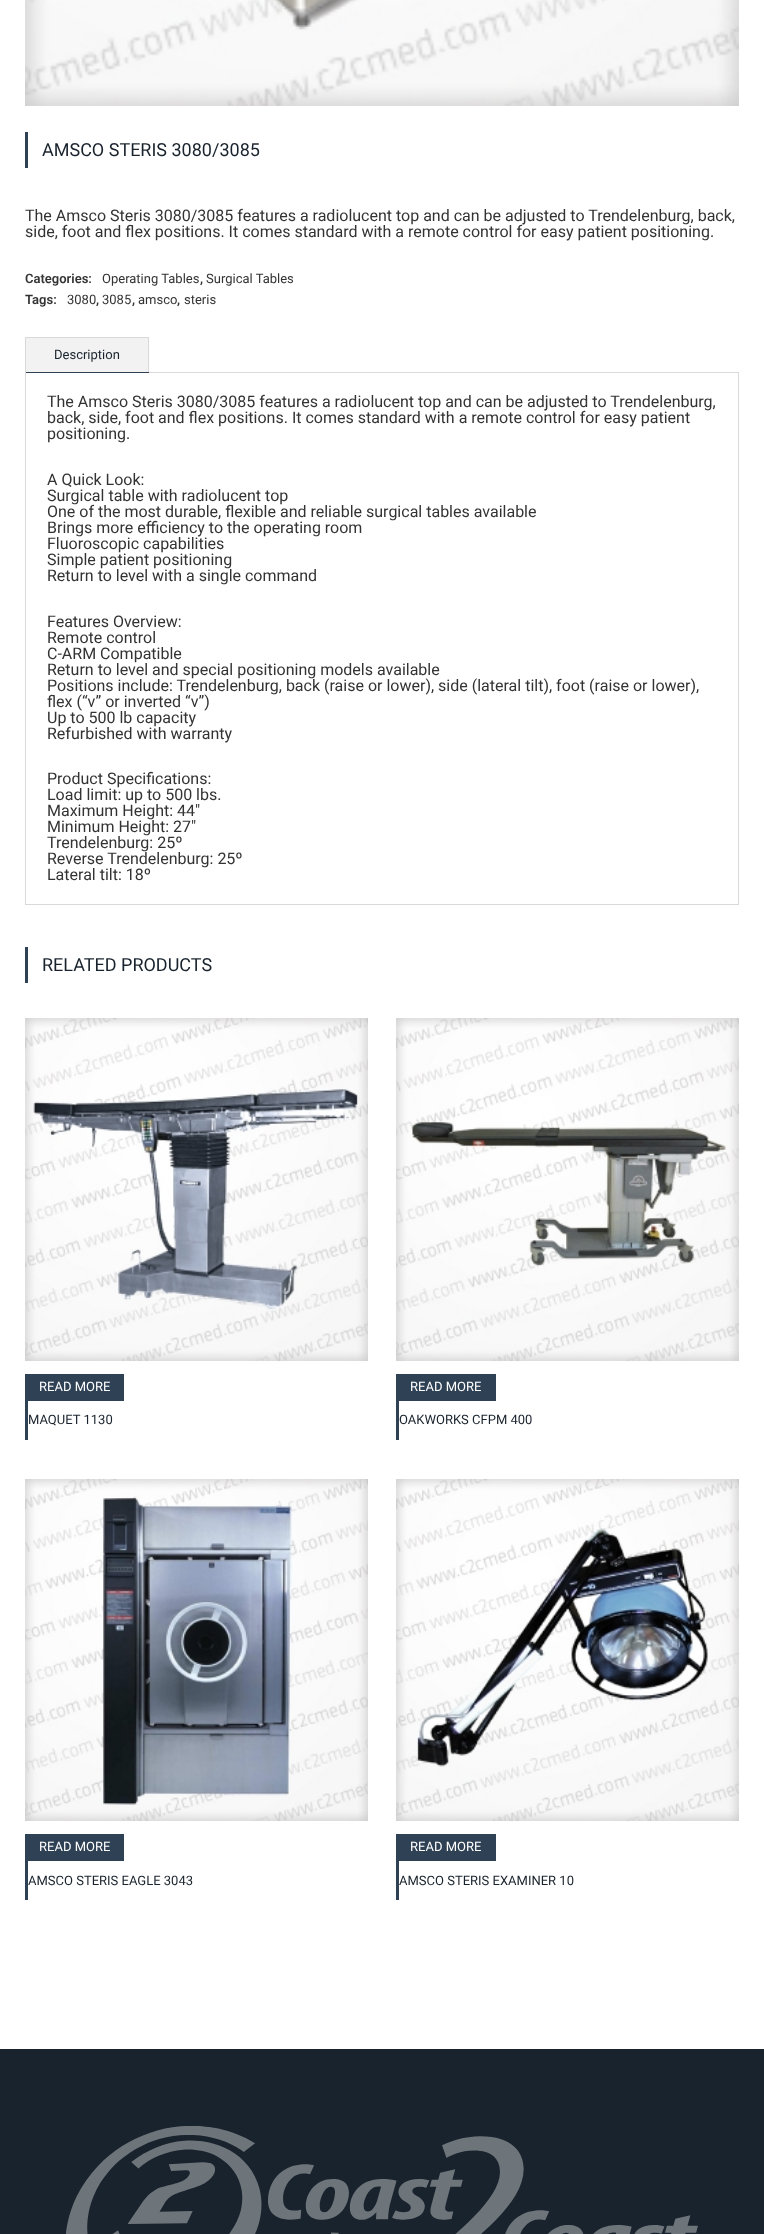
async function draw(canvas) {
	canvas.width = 764;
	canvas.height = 2234;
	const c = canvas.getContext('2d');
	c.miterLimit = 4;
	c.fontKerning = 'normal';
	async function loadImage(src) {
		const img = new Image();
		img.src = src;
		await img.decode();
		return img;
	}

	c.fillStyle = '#fff';
	c.fillRect(0, 0, 764, 2234);
	c.drawImage(await loadImage('img1.png'), 25, 0, 714, 106);
	c.fillStyle = '#2f4154';
	c.fillRect(25, 132, 3, 36);
	c.font = '18px Roboto';
	c.fillStyle = '#19232d';
	c.fillText('AMSCO STERIS 3080/3085', 42, 156);
	c.font = '16px Roboto';
	c.fillStyle = '#333';
	c.fillText('The Amsco Steris 3080/3085 features a radiolucent top and can be adjusted to Trendelenburg, back,', 25, 221);
	c.fillText('side, foot and flex positions. It comes standard with a remote control for easy patient positioning.', 25, 237);
	c.font = '600 13px Roboto';
	c.fillText('Categories:', 25, 283);
	c.font = '13px Roboto';
	c.fillText('Operating Tables', 102, 283);
	c.font = '600 13px Roboto';
	c.fillText(',', 200, 283);
	c.font = '13px Roboto';
	c.fillText('Surgical Tables', 206, 283);
	c.font = '600 13px Roboto';
	c.fillText('Tags:', 25, 304);
	c.font = '13px Roboto';
	c.fillText('3080', 67, 304);
	c.font = '600 13px Roboto';
	c.fillText(',', 96, 304);
	c.font = '13px Roboto';
	c.fillText('3085', 102, 304);
	c.font = '600 13px Roboto';
	c.fillText(',', 132, 304);
	c.font = '13px Roboto';
	c.fillText('amsco', 138, 304);
	c.font = '600 13px Roboto';
	c.fillText(',', 177, 304);
	c.font = '13px Roboto';
	c.fillText('steris', 184, 304);
	c.fillStyle = '#f2f2f2';
	c.fillRect(26, 338, 122, 34);
	c.fillStyle = '#d9d9d9';
	c.fillRect(25, 337, 124, 1);
	c.strokeStyle = '#d9d9d9';
	c.strokeRect(25.5, 372.5, 713, 532);
	for (const [x, y, w, h, color] of [
		[148, 337, 1, 36, '#d9d9d9'],
		[25, 372, 124, 1, '#2f4154'],
		[25, 337, 1, 36, '#d9d9d9'],
	]) {
		c.fillStyle = color;
		c.fillRect(x, y, w, h);
	}
	c.fillStyle = '#19232d';
	c.fillText('Description', 54, 359);
	c.font = '16px Roboto';
	c.fillStyle = '#333';
	for (const [text, x, y] of [
		['The Amsco Steris 3080/3085 features a radiolucent top and can be adjusted to Trendelenburg,', 47, 407],
		['back, side, foot and flex positions. It comes standard with a remote control for easy patient', 47, 423],
		['positioning.', 47, 439],
		['A Quick Look:', 47, 485],
		['Surgical table with radiolucent top', 47, 501],
		['One of the most durable, flexible and reliable surgical tables available', 47, 517],
		['Brings more efficiency to the operating room', 47, 533],
		['Fluoroscopic capabilities', 47, 549],
		['Simple patient positioning', 47, 565],
		['Return to level with a single command', 47, 581],
		['Features Overview:', 47, 627],
		['Remote control', 47, 643],
		['C-ARM Compatible', 47, 659],
		['Return to level and special positioning models available', 47, 675],
		['Positions include: Trendelenburg, back (raise or lower), side (lateral tilt), foot (raise or lower),', 47, 691],
		['flex (“v” or inverted “v”)', 47, 707],
		['Up to 500 lb capacity', 47, 723],
		['Refurbished with warranty', 47, 739],
		['Product Specifications:', 47, 784],
		['Load limit: up to 500 lbs.', 47, 800],
		['Maximum Height: 44″', 47, 816],
		['Minimum Height: 27″', 47, 832],
		['Trendelenburg: 25º', 47, 848],
		['Reverse Trendelenburg: 25º', 47, 864],
		['Lateral tilt: 18º', 47, 880],
	]) {
		c.fillText(text, x, y);
	}
	c.fillStyle = '#2f4154';
	c.fillRect(25, 947, 3, 36);
	c.font = '18px Roboto';
	c.fillStyle = '#19232d';
	c.fillText('RELATED PRODUCTS', 42, 971);
	c.drawImage(await loadImage('img2.png'), 25, 1018, 343, 343);
	c.fillStyle = '#2f4154';
	c.fillRect(25, 1374, 99, 27);
	c.font = '13px Roboto';
	c.fillStyle = '#fff';
	c.fillText('READ MORE', 39, 1391);
	c.fillStyle = '#2f4154';
	c.fillRect(25, 1401, 3, 39);
	c.fillStyle = '#19232d';
	c.fillText('MAQUET 1130', 28, 1424);
	c.drawImage(await loadImage('img3.png'), 396, 1018, 343, 343);
	c.fillStyle = '#2f4154';
	c.fillRect(396, 1374, 100, 27);
	c.fillStyle = '#fff';
	c.fillText('READ MORE', 410, 1391);
	c.fillStyle = '#2f4154';
	c.fillRect(396, 1401, 3, 39);
	c.fillStyle = '#19232d';
	c.fillText('OAKWORKS CFPM 400', 399, 1424);
	c.drawImage(await loadImage('img4.png'), 25, 1479, 343, 342);
	c.fillStyle = '#2f4154';
	c.fillRect(25, 1834, 99, 27);
	c.fillStyle = '#fff';
	c.fillText('READ MORE', 39, 1851);
	c.fillStyle = '#2f4154';
	c.fillRect(25, 1861, 3, 39);
	c.fillStyle = '#19232d';
	c.fillText('AMSCO STERIS EAGLE 3043', 28, 1885);
	c.drawImage(await loadImage('img5.png'), 396, 1479, 343, 342);
	c.fillStyle = '#2f4154';
	c.fillRect(396, 1834, 100, 27);
	c.fillStyle = '#fff';
	c.fillText('READ MORE', 410, 1851);
	c.fillStyle = '#2f4154';
	c.fillRect(396, 1861, 3, 39);
	c.fillStyle = '#19232d';
	c.fillText('AMSCO STERIS EXAMINER 10', 399, 1885);
	c.fillRect(0, 2049, 764, 185);
	c.drawImage(await loadImage('img6.png'), 66, 2126, 632, 108);
}

draw(document.querySelector('canvas'));
